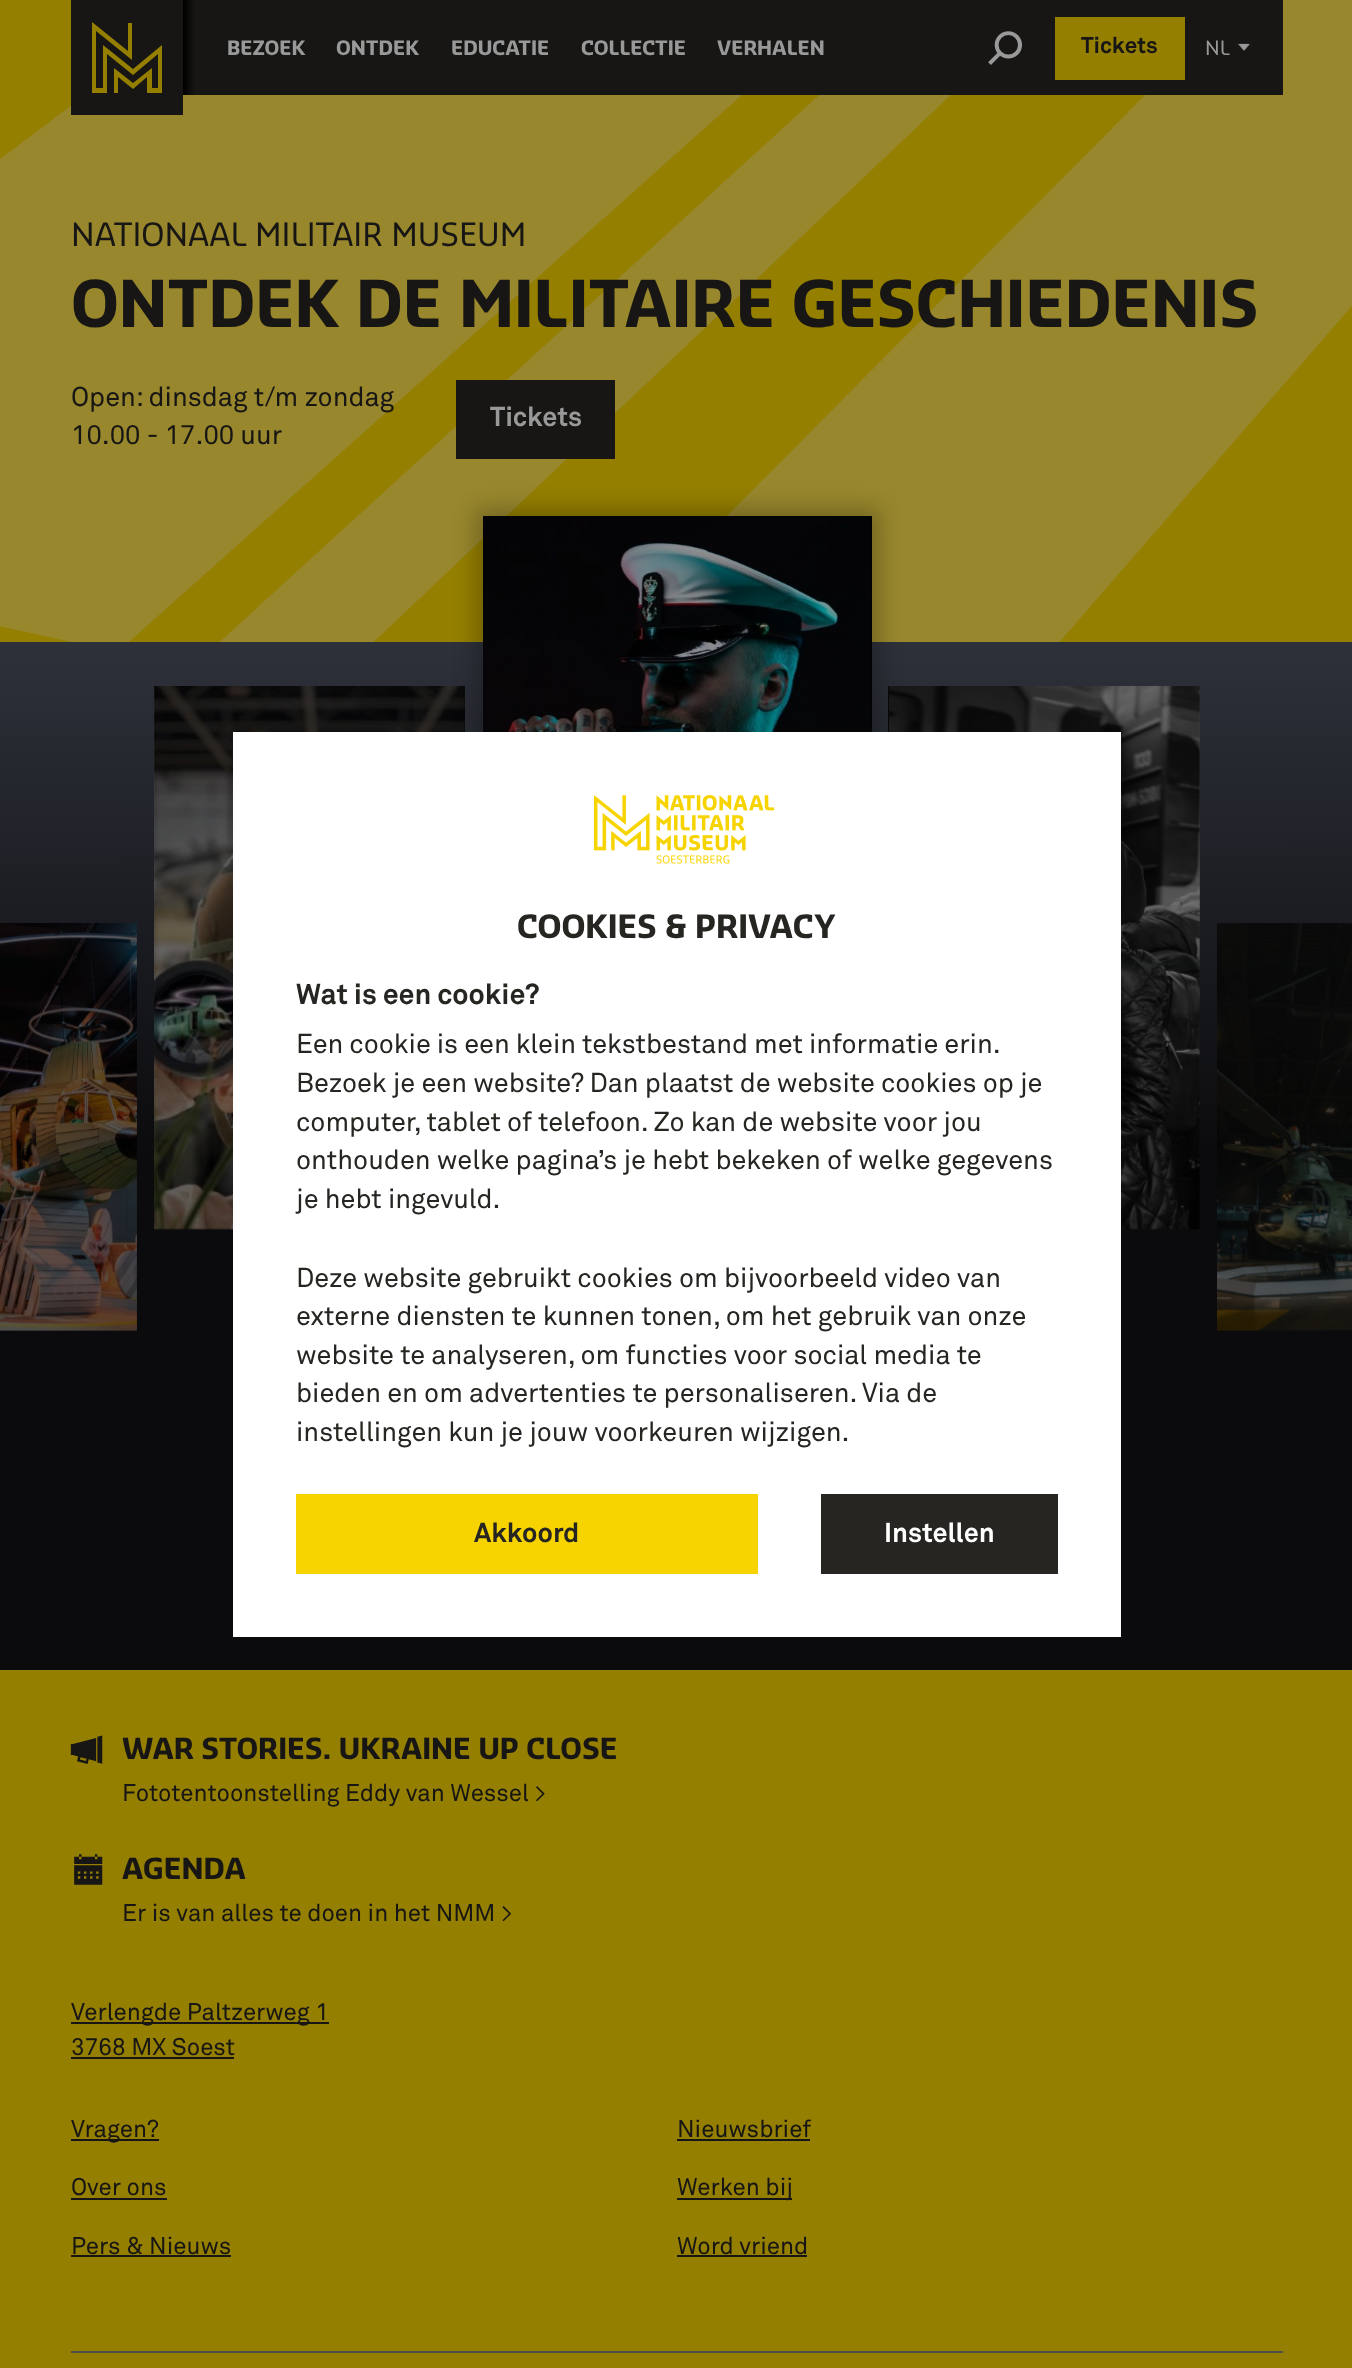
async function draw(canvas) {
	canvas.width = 1352;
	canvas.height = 2368;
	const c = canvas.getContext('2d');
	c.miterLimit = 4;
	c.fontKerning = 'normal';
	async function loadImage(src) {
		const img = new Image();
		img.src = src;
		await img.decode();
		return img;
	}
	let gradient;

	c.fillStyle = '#947f00';
	c.fillRect(0, 0, 1352, 2368);
	c.drawImage(await loadImage('img3.png'), 0, 0, 1352, 642);
	c.fillStyle = '#171614';
	c.fillRect(71, 0, 112, 115);
	c.fillStyle = '#947f00';
	c.beginPath();
	c.moveTo(92, 93);
	c.lineTo(107, 93);
	c.lineTo(107, 54);
	c.lineTo(133, 75);
	c.lineTo(158, 54);
	c.lineTo(158, 88);
	c.lineTo(152, 88);
	c.lineTo(152, 68);
	c.lineTo(133, 83);
	c.lineTo(114, 68);
	c.lineTo(114, 93);
	c.lineTo(118, 93);
	c.lineTo(118, 77);
	c.lineTo(133, 89);
	c.lineTo(147, 77);
	c.lineTo(147, 93);
	c.lineTo(162, 93);
	c.lineTo(162, 45);
	c.lineTo(133, 69);
	c.lineTo(103, 45);
	c.lineTo(103, 88);
	c.lineTo(96, 88);
	c.lineTo(96, 31);
	c.lineTo(132, 60);
	c.lineTo(132, 23);
	c.lineTo(128, 23);
	c.lineTo(128, 51);
	c.lineTo(92, 22);
	c.closePath();
	c.fill('evenodd');
	c.fillStyle = '#171614';
	c.fillRect(195, 0, 1088, 95);
	gradient = c.createLinearGradient(183, 47, 195, 47);
	gradient.addColorStop(0, '#000');
	gradient.addColorStop(1, '#171614');
	c.fillStyle = gradient;
	c.fillRect(183, 0, 12, 95);
	c.font = 'bold 19.5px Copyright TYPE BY';
	c.fillStyle = '#999';
	for (const [text, x, y] of [
		['BEZOEK', 227, 55],
		['ONTDEK', 336, 55],
		['EDUCATIE', 451, 55],
		['COLLECTIE', 581, 55],
		['VERHALEN', 717, 55],
	]) {
		c.fillText(text, x, y);
	}
	c.drawImage(await loadImage('img1.png'), 988, 31, 34, 34);
	c.fillStyle = '#947f00';
	c.fillRect(1055, 17, 130, 63);
	c.font = 'bold 22.5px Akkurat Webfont';
	c.fillStyle = '#171614';
	c.fillText('Tickets', 1081, 53);
	c.font = '19.5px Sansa';
	c.fillStyle = '#999';
	c.fillText('NL', 1205, 55);
	c.drawImage(await loadImage('img2.png'), 1238, 43, 13, 8);
	c.font = '31.5px Sansa';
	c.fillStyle = '#171614';
	c.fillText('NATIONAAL MILITAIR MUSEUM', 71, 246);
	c.font = 'bold 63px Copyright TYPE BY';
	c.fillText('ONTDEK DE MILITAIRE GESCHIEDENIS', 71, 327);
	c.font = '27px Akkurat Webfont';
	c.fillText('Open: dinsdag t/m zondag', 71, 406);
	c.fillText('10.00 - 17.00 uur', 71, 444);
	c.fillRect(456, 380, 159, 79);
	c.font = 'bold 27px Akkurat Webfont';
	c.fillStyle = '#999';
	c.fillText('Tickets', 490, 426);
	gradient = c.createLinearGradient(676, 642, 677, 1670);
	gradient.addColorStop(0, '#2e313a');
	gradient.addColorStop(0.5, '#0b0b0d');
	gradient.addColorStop(1, '#0b0b0d');
	c.fillStyle = gradient;
	c.fillRect(0, 642, 1352, 1028);
	c.fillStyle = '#00000099';
	c.fillRect(0, 923, 137, 408);
	c.drawImage(await loadImage('img4.png'), 0, 923, 137, 408);
	c.fillStyle = '#000000cc';
	c.fillRect(155, 686, 310, 543);
	c.drawImage(await loadImage('img5.png'), 154, 686, 311, 544);
	c.fillStyle = '#00000040';
	c.filter = 'blur(11px)';
	c.beginPath();
	c.rect(476, 509, 403, 693);
	c.fill();
	c.filter = 'none';
	c.fillStyle = '#000';
	c.fillRect(871, 516, 1, 216);
	c.drawImage(await loadImage('img6.png'), 483, 516, 389, 216);
	c.fillStyle = '#000000cc';
	c.fillRect(888, 686, 311, 543);
	c.drawImage(await loadImage('img7.png'), 889, 686, 311, 544);
	c.fillStyle = '#00000099';
	c.fillRect(1217, 923, 135, 408);
	c.drawImage(await loadImage('img8.png'), 1217, 923, 135, 408);
	c.drawImage(await loadImage('img9.png'), 70, 1735, 33, 29);
	c.font = 'bold 28.5px Copyright TYPE BY';
	c.fillStyle = '#171614';
	c.fillText('WAR STORIES. UKRAINE UP CLOSE', 122, 1759);
	c.font = '24px Akkurat Webfont';
	c.fillText('Fototentoonstelling Eddy van Wessel >', 122, 1801);
	c.drawImage(await loadImage('img10.png'), 74, 1854, 29, 31);
	c.font = 'bold 28.5px Copyright TYPE BY';
	c.fillText('AGENDA', 122, 1879);
	c.font = '24px Akkurat Webfont';
	c.fillText('Er is van alles te doen in het NMM >', 122, 1921);
	c.fillRect(71, 2022, 258, 2);
	c.fillText('Verlengde Paltzerweg 1', 71, 2020);
	c.fillText('3768 MX Soest', 71, 2055);
	c.fillRect(71, 2057, 163, 2);
	c.fillRect(71, 2139, 88, 2);
	c.fillText('Vragen?', 71, 2137);
	c.fillText('Over ons', 71, 2195);
	c.fillRect(71, 2198, 96, 2);
	c.fillText('Pers & Nieuws', 71, 2254);
	c.fillRect(71, 2255, 160, 2);
	c.fillText('Nieuwsbrief', 677, 2137);
	c.fillRect(677, 2139, 133, 2);
	c.fillRect(677, 2198, 115, 2);
	c.fillText('Werken bij', 677, 2195);
	c.fillText('Word vriend', 677, 2254);
	for (const [x, y, w, h, color] of [
		[677, 2255, 130, 2, '#171614'],
		[71, 2351, 1212, 2, '#4d4d4d'],
		[233, 732, 888, 905, '#fff'],
	]) {
		c.fillStyle = color;
		c.fillRect(x, y, w, h);
	}
	c.drawImage(await loadImage('img11.png'), 594, 795, 180, 69);
	c.font = 'bold 31.5px Copyright TYPE BY';
	c.fillStyle = '#262521';
	c.fillText('COOKIES & PRIVACY', 517, 938);
	c.font = 'bold 28.5px Akkurat Webfont';
	c.fillText('Wat is een cookie?', 296, 1004);
	c.wordSpacing = '-0.25px';
	c.font = '27px Akkurat Webfont';
	c.fillText('Een cookie is een klein tekstbestand met informatie erin.', 296, 1053);
	c.wordSpacing = '0px';
	for (const [text, x, y] of [
		['Bezoek je een website? Dan plaatst de website cookies op je', 296, 1092],
		['computer, tablet of telefoon. Zo kan de website voor jou', 296, 1131],
		['onthouden welke pagina’s je hebt bekeken of welke gegevens', 296, 1169],
		['je hebt ingevuld.', 296, 1208],
		['Deze website gebruikt cookies om bijvoorbeeld video van', 296, 1287],
		['externe diensten te kunnen tonen, om het gebruik van onze', 296, 1325],
		['website te analyseren, om functies voor social media te', 296, 1364],
		['bieden en om advertenties te personaliseren. Via de', 296, 1402],
		['instellingen kun je jouw voorkeuren wijzigen.', 296, 1441],
	]) {
		c.fillText(text, x, y);
	}
	c.fillStyle = '#f7d300';
	c.fillRect(296, 1494, 462, 80);
	c.font = 'bold 27px Akkurat Webfont';
	c.fillStyle = '#262521';
	c.fillText('Akkoord', 474, 1542);
	c.fillRect(821, 1494, 237, 80);
	c.fillStyle = '#fff';
	c.fillText('Instellen', 884, 1542);
}

draw(document.querySelector('canvas'));
